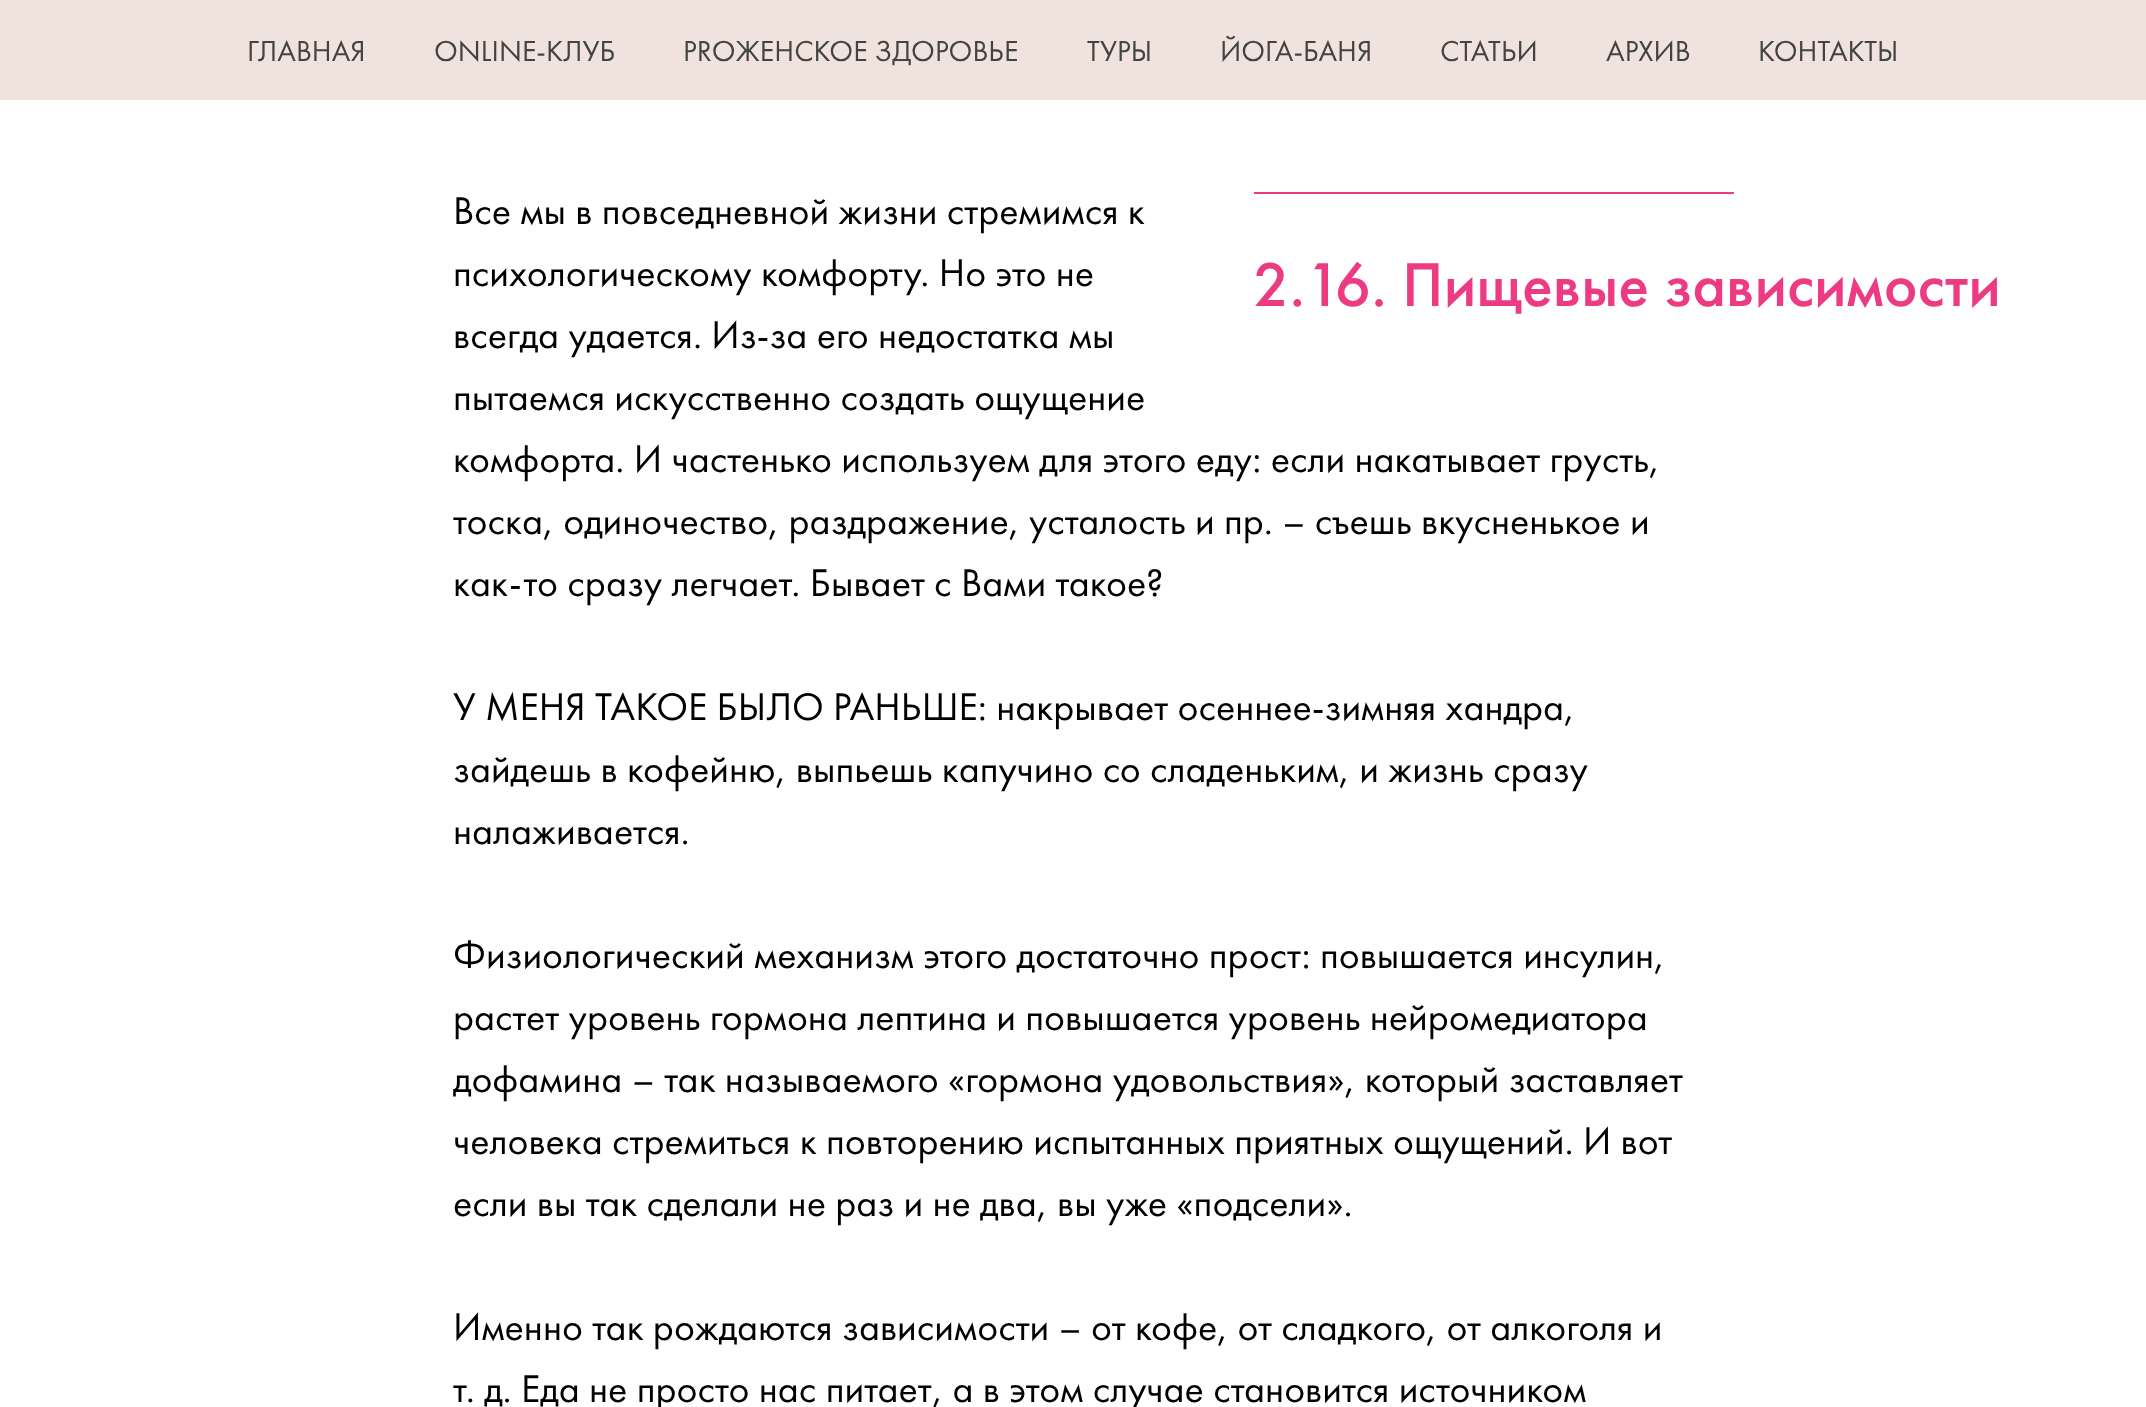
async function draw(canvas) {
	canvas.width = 2146;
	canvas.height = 1407;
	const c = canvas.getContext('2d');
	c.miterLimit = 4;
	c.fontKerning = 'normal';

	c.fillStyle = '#fff';
	c.fillRect(0, 0, 2146, 1407);
	c.fillStyle = '#f0e2dd';
	c.fillRect(0, 0, 2146, 100);
	c.font = '30px Futura PT';
	c.fillStyle = '#434343';
	for (const [text, x, y] of [
		['ГЛАВНАЯ', 247, 61],
		['ONLINE-КЛУБ', 434, 61],
		['PROЖЕНСКОЕ ЗДОРОВЬЕ', 683, 61],
		['ТУРЫ', 1087, 61],
		['ЙОГА-БАНЯ', 1220, 61],
		['СТАТЬИ', 1440, 61],
		['АРХИВ', 1606, 61],
		['КОНТАКТЫ', 1758, 61],
	]) {
		c.fillText(text, x, y);
	}
	c.font = '40px Futura PT';
	c.fillStyle = '#000';
	for (const [text, x, y] of [
		['Все мы в повседневной жизни стремимся к', 453, 224],
		['психологическому комфорту. Но это не', 453, 286],
		['всегда удается. Из-за его недостатка мы', 453, 348],
		['пытаемся искусственно создать ощущение', 453, 410],
		['комфорта. И частенько используем для этого еду: если накатывает грусть,', 453, 472],
		['тоска, одиночество, раздражение, усталость и пр. – съешь вкусненькое и', 453, 534],
		['как-то сразу легчает. Бывает с Вами такое?', 453, 596],
		['У МЕНЯ ТАКОЕ БЫЛО РАНЬШЕ: накрывает осеннее-зимняя хандра,', 453, 720],
		['зайдешь в кофейню, выпьешь капучино со сладеньким, и жизнь сразу', 453, 782],
		['налаживается.', 453, 844],
		['Физиологический механизм этого достаточно прост: повышается инсулин,', 453, 968],
		['растет уровень гормона лептина и повышается уровень нейромедиатора', 453, 1030],
		['дофамина – так называемого «гормона удовольствия», который заставляет', 453, 1092],
		['человека стремиться к повторению испытанных приятных ощущений. И вот', 453, 1154],
		['если вы так сделали не раз и не два, вы уже «подсели».', 453, 1216],
		['Именно так рождаются зависимости – от кофе, от сладкого, от алкоголя и', 453, 1340],
		['т. д. Еда не просто нас питает, а в этом случае становится источником', 453, 1402],
	]) {
		c.fillText(text, x, y);
	}
	c.fillStyle = '#ec3b83';
	c.fillRect(1254, 192, 480, 2);
	c.font = '500 64px Futura PT';
	c.fillText('2.16. Пищевые зависимости', 1253, 306);
}

draw(document.querySelector('canvas'));
